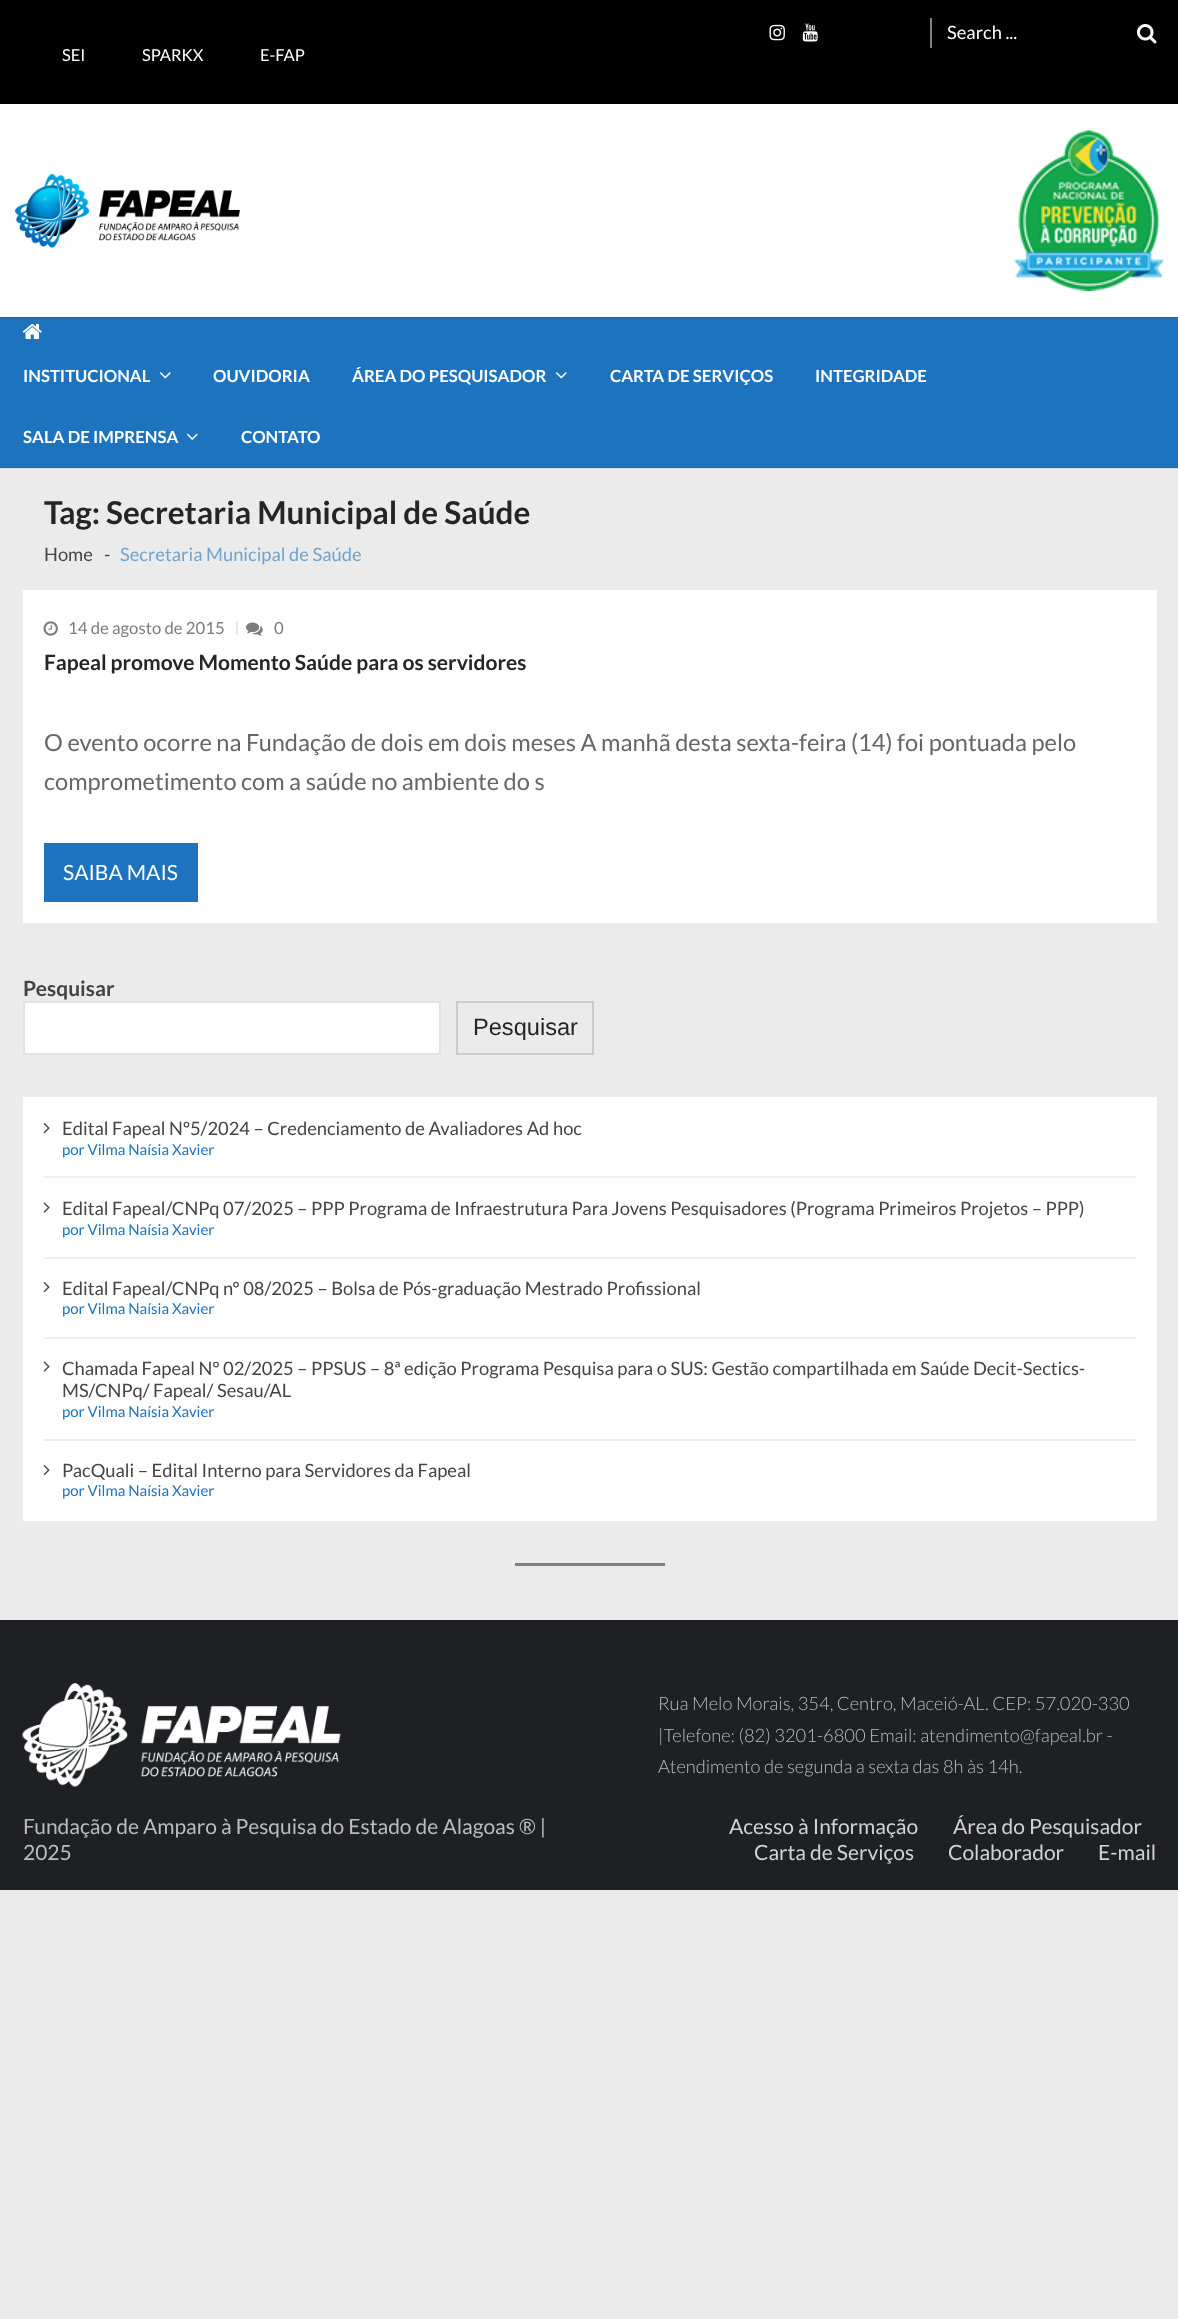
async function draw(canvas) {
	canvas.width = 1178;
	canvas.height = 2319;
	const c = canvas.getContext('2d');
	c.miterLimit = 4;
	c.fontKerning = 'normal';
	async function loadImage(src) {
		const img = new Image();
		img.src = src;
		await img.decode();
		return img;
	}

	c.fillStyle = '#ebebeb';
	c.fillRect(0, 0, 1178, 2319);
	c.fillStyle = '#dbdbdb';
	c.fillRect(0, 468, 1178, 1);
	c.fillStyle = '#000';
	c.fillRect(0, 0, 1178, 104);
	c.font = '18.38px Lato';
	c.fillStyle = '#fff';
	c.fillText('Search ...', 947, 39);
	c.drawImage(await loadImage('img1.png'), 1137, 24, 20, 20);
	c.drawImage(await loadImage('img2.png'), 769, 24, 16, 17);
	c.drawImage(await loadImage('img3.png'), 802, 23, 16, 19);
	c.fillStyle = '#808080';
	c.fillRect(930, 18, 2, 30);
	c.font = '16.5px Lato';
	c.fillStyle = '#fff';
	for (const [text, x, y] of [
		['SEI', 62, 61],
		['SPARKX', 142, 61],
		['E-FAP', 260, 61],
	]) {
		c.fillText(text, x, y);
	}
	c.fillRect(0, 104, 1178, 213);
	c.drawImage(await loadImage('img4.png'), 15, 174, 225, 74);
	c.drawImage(await loadImage('img5.png'), 1014, 130, 150, 161);
	for (const [x, y, w, h, color] of [
		[0, 319, 1178, 148, '#1e73be'],
		[0, 467, 1178, 1, '#1c6bb1'],
		[0, 317, 1178, 2, '#1c6ab0'],
	]) {
		c.fillStyle = color;
		c.fillRect(x, y, w, h);
	}
	c.drawImage(await loadImage('img6.png'), 22, 324, 20, 15);
	c.font = 'bold 16.75px Lato';
	c.fillStyle = '#fff';
	c.fillText('INSTITUCIONAL', 23, 382);
	c.drawImage(await loadImage('img7.png'), 159, 372, 12, 7);
	c.fillText('OUVIDORIA', 213, 382);
	c.fillText('ÁREA DO PESQUISADOR', 352, 382);
	c.drawImage(await loadImage('img7.png'), 555, 372, 12, 7);
	for (const [text, x, y] of [
		['CARTA DE SERVIÇOS', 610, 382],
		['INTEGRIDADE', 815, 382],
		['SALA DE IMPRENSA', 23, 443],
	]) {
		c.fillText(text, x, y);
	}
	c.drawImage(await loadImage('img8.png'), 186, 433, 12, 7);
	c.fillText('CONTATO', 241, 443);
	c.font = 'bold 31.5px Lato';
	c.fillStyle = '#252525';
	c.fillText('Tag: Secretaria Municipal de Saúde', 44, 524);
	c.font = '18.38px Lato';
	c.fillStyle = '#444';
	c.fillText('Home', 44, 561);
	c.fillText('-', 104, 561);
	c.fillStyle = '#70a3d0';
	c.fillText('Secretaria Municipal de Saúde', 120, 561);
	c.fillStyle = '#fff';
	c.fillRect(23, 590, 1134, 333);
	c.drawImage(await loadImage('img9.png'), 43, 621, 15, 15);
	c.font = '16.75px Lato';
	c.fillStyle = '#7c7c7c';
	c.fillText('14 de agosto de 2015', 68, 634);
	c.fillStyle = '#e6e6e6';
	c.fillRect(236, 621, 2, 14);
	c.drawImage(await loadImage('img10.png'), 246, 622, 17, 14);
	c.fillStyle = '#7c7c7c';
	c.fillText('0', 274, 634);
	c.font = 'bold 21px Lato';
	c.fillStyle = '#252525';
	c.fillText('Fapeal promove Momento Saúde para os servidores', 44, 670);
	c.font = '23.6px Lato';
	c.fillStyle = '#666';
	c.fillText('O evento ocorre na Fundação de dois em dois meses A manhã desta sexta-feira (14) foi pontuada pelo', 44, 751);
	c.fillText('comprometimento com a saúde no ambiente do s', 44, 790);
	c.fillStyle = '#1e73be';
	c.fillRect(44, 843, 154, 59);
	c.font = '21px Lato';
	c.fillStyle = '#fff';
	c.fillText('SAIBA MAIS', 63, 880);
	c.font = 'bold 21px Lato';
	c.fillStyle = '#444';
	c.fillText('Pesquisar', 23, 996);
	c.fillStyle = '#fff';
	c.beginPath();
	c.roundRect(24, 1002, 416, 52, 2);
	c.fill();
	c.strokeStyle = '#e1e1e1';
	c.lineWidth = 2;
	c.stroke();
	c.strokeStyle = '#ccc';
	c.strokeRect(457, 1002, 136, 52);
	c.font = '23.6px Liberation Sans';
	c.fillStyle = '#252525';
	c.fillText('Pesquisar', 473, 1035);
	c.fillStyle = '#fff';
	c.fillRect(23, 1097, 1134, 424);
	c.fillStyle = '#efefef';
	c.fillRect(44, 1176, 1092, 2);
	c.drawImage(await loadImage('img11.png'), 43, 1123, 7, 11);
	c.font = '18.38px Lato';
	c.fillStyle = '#444';
	c.fillText('Edital Fapeal Nº5/2024 – Credenciamento de Avaliadores Ad hoc', 62, 1135);
	c.font = '15px Lato';
	c.fillStyle = '#1e73be';
	c.fillText('por Vilma Naísia Xavier', 62, 1155);
	c.fillStyle = '#efefef';
	c.fillRect(44, 1257, 1092, 2);
	c.drawImage(await loadImage('img12.png'), 43, 1202, 7, 11);
	c.font = '18.38px Lato';
	c.fillStyle = '#444';
	c.fillText('Edital Fapeal/CNPq 07/2025 – PPP Programa de Infraestrutura Para Jovens Pesquisadores (Programa Primeiros Projetos – PPP)', 62, 1215);
	c.font = '15px Lato';
	c.fillStyle = '#1e73be';
	c.fillText('por Vilma Naísia Xavier', 62, 1235);
	c.fillStyle = '#efefef';
	c.fillRect(44, 1337, 1092, 2);
	c.drawImage(await loadImage('img11.png'), 43, 1282, 7, 11);
	c.font = '18.38px Lato';
	c.fillStyle = '#444';
	c.fillText('Edital Fapeal/CNPq nº 08/2025 – Bolsa de Pós-graduação Mestrado Profissional', 62, 1295);
	c.font = '15px Lato';
	c.fillStyle = '#1e73be';
	c.fillText('por Vilma Naísia Xavier', 62, 1314);
	c.fillStyle = '#efefef';
	c.fillRect(44, 1439, 1092, 2);
	c.drawImage(await loadImage('img12.png'), 43, 1361, 7, 11);
	c.font = '18.38px Lato';
	c.fillStyle = '#444';
	c.fillText('Chamada Fapeal Nº 02/2025 – PPSUS – 8ª edição Programa Pesquisa para o SUS: Gestão compartilhada em Saúde Decit-Sectics-', 62, 1375);
	c.fillText('MS/CNPq/ Fapeal/ Sesau/AL', 62, 1397);
	c.font = '15px Lato';
	c.fillStyle = '#1e73be';
	c.fillText('por Vilma Naísia Xavier', 62, 1417);
	c.drawImage(await loadImage('img11.png'), 43, 1465, 7, 11);
	c.font = '18.38px Lato';
	c.fillStyle = '#444';
	c.fillText('PacQuali – Edital Interno para Servidores da Fapeal', 62, 1477);
	c.font = '15px Lato';
	c.fillStyle = '#1e73be';
	c.fillText('por Vilma Naísia Xavier', 62, 1496);
	c.fillStyle = '#808080';
	c.fillRect(515, 1563, 150, 3);
	c.fillStyle = '#1f2024';
	c.fillRect(0, 1620, 1178, 270);
	c.drawImage(await loadImage('img13.png'), 22, 1683, 319, 104);
	c.font = '300 18.38px Lato';
	c.fillStyle = '#bcbcbd';
	for (const [text, x, y] of [
		['Rua Melo Morais, 354, Centro, Maceió-AL. CEP: 57.020-330', 658, 1710],
		['|Telefone: (82) 3201-6800 Email: atendimento@fapeal.br -', 658, 1742],
		['Atendimento de segunda a sexta das 8h às 14h.', 658, 1773],
	]) {
		c.fillText(text, x, y);
	}
	c.font = '21px Lato';
	c.fillText('Fundação de Amparo à Pesquisa do Estado de Alagoas ® |', 23, 1834);
	c.fillText('2025', 23, 1860);
	c.fillStyle = '#d2d2d3';
	for (const [text, x, y] of [
		['Acesso à Informação', 729, 1834],
		['Área do Pesquisador', 953, 1834],
		['Carta de Serviços', 754, 1860],
		['Colaborador', 948, 1860],
		['E-mail', 1098, 1860],
	]) {
		c.fillText(text, x, y);
	}
}

draw(document.querySelector('canvas'));
